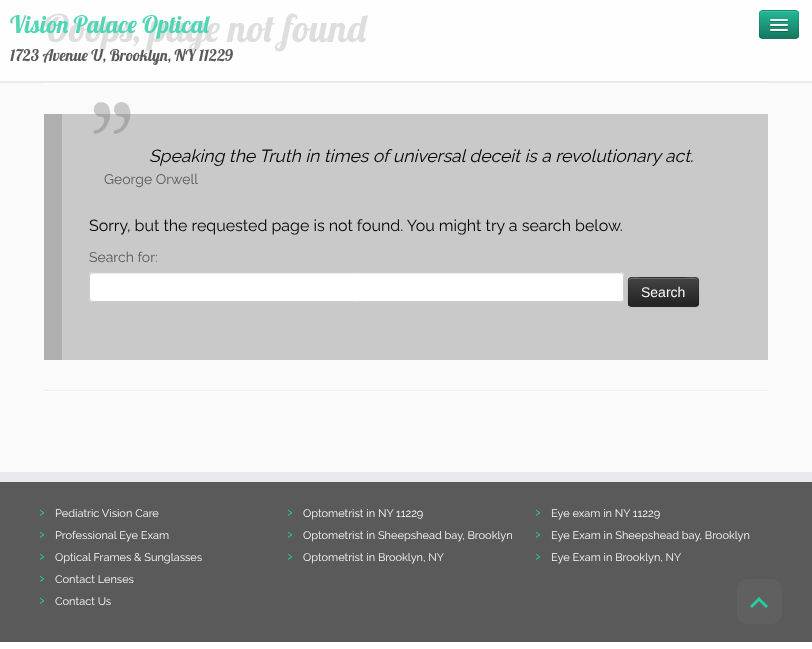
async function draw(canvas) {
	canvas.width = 812;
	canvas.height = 649;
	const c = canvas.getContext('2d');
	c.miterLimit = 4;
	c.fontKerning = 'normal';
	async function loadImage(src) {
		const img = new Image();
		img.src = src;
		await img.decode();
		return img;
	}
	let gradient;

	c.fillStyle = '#fafafa';
	c.fillRect(0, 0, 812, 649);
	c.fillStyle = '#fefefe';
	c.fillRect(0, 0, 812, 81);
	c.font = '38px Lobster';
	c.fillStyle = '#dedede';
	c.fillText('Ooops, page not found', 44, 42);
	for (const [x, y, w, h, color] of [
		[44, 83, 724, 1, '#fff'],
		[62, 114, 706, 246, '#c9c9c9'],
		[44, 114, 18, 246, '#afafaf'],
	]) {
		c.fillStyle = color;
		c.fillRect(x, y, w, h);
	}
	c.drawImage(await loadImage('img1.png'), 93, 102, 38, 32);
	c.font = 'italic 100 17.5px Raleway';
	c.fillStyle = '#000';
	c.fillText('Speaking the Truth in times of universal deceit is a revolutionary act.', 149, 162);
	c.font = '100 14px Raleway';
	c.fillStyle = '#5a5a5a';
	c.fillText('George Orwell', 104, 184);
	c.font = '100 16px Raleway';
	c.fillStyle = '#000';
	c.fillText('Sorry, but the requested page is not found. You might try a search below.', 89, 231);
	c.font = '100 14px Raleway';
	c.fillStyle = '#5a5a5a';
	c.fillText('Search for:', 89, 262);
	c.fillStyle = '#fff';
	c.beginPath();
	c.roundRect(89, 272, 535, 30, 4);
	c.fill();
	c.fillStyle = '#ececec';
	c.beginPath();
	c.moveTo(93, 274);
	c.lineTo(620, 274);
	c.bezierCurveTo(622, 274, 623, 275, 623, 277);
	c.lineTo(622, 274);
	c.lineTo(620, 273);
	c.lineTo(93, 273);
	c.bezierCurveTo(91, 273, 90, 275, 90, 277);
	c.bezierCurveTo(90, 275, 91, 274, 93, 274);
	c.closePath();
	c.fill();
	c.beginPath();
	c.roundRect(89.5, 272.5, 534, 29, 3.5);
	c.strokeStyle = '#ccc';
	c.stroke();
	c.fillStyle = '#0000000d';
	c.filter = 'blur(1px)';
	c.beginPath();
	c.roundRect(628, 278, 71, 30, 4);
	c.fill();
	c.filter = 'none';
	c.fillStyle = '#363636';
	c.beginPath();
	c.roundRect(628, 277, 71, 30, 4);
	c.fill();
	c.save();
	c.beginPath();
	c.roundRect(628, 277, 71, 30, 4);
	c.clip();
	gradient = c.createLinearGradient(664, 278, 664, 306);
	gradient.addColorStop(0, '#444');
	gradient.addColorStop(1, '#222');
	c.fillStyle = gradient;
	c.fillRect(628, 278, 71, 28);
	c.restore();
	c.fillStyle = '#ffffff33';
	c.beginPath();
	c.moveTo(632, 279);
	c.lineTo(695, 279);
	c.bezierCurveTo(697, 279, 698, 280, 698, 282);
	c.bezierCurveTo(698, 275, 689, 278, 684, 278);
	c.lineTo(642, 278);
	c.bezierCurveTo(638, 278, 629, 275, 629, 282);
	c.bezierCurveTo(629, 280, 630, 279, 632, 279);
	c.closePath();
	c.fill();
	c.beginPath();
	c.moveTo(697.5, 305.5);
	c.lineTo(695.5, 306.5);
	c.lineTo(631.5, 306.5);
	c.lineTo(629.5, 305.5);
	c.strokeStyle = '#00000040';
	c.stroke();
	c.beginPath();
	c.moveTo(629.5, 305.5);
	c.bezierCurveTo(627.5, 303.5, 628.5, 295, 628.5, 292);
	c.bezierCurveTo(628.5, 276, 626, 277.5, 642.5, 277.5);
	c.lineTo(684.5, 277.5);
	c.bezierCurveTo(701, 277.5, 698.5, 276, 698.5, 292);
	c.bezierCurveTo(698.5, 295, 699.5, 303.5, 697.5, 305.5);
	c.strokeStyle = '#0000001a';
	c.stroke();
	c.font = '14px Liberation Sans';
	c.fillStyle = '#fafafa';
	c.fillText('Search', 641, 297);
	for (const [x, y, w, h, color] of [
		[44, 390, 724, 1, '#eee'],
		[44, 391, 724, 1, '#fff'],
		[0, 81, 812, 2, '#e9eaee'],
	]) {
		c.fillStyle = color;
		c.fillRect(x, y, w, h);
	}
	c.font = '24px Lobster';
	c.fillStyle = '#50d5b5';
	c.fillText('Vision Palace Optical', 10, 33);
	c.font = '16px Lobster';
	c.fillStyle = '#5a5a5a';
	c.fillText('1723 Avenue U, Brooklyn, NY 11229', 10, 61);
	c.fillStyle = '#1e9e7f';
	c.beginPath();
	c.roundRect(759, 10, 40, 29, 4);
	c.fill();
	c.save();
	c.beginPath();
	c.roundRect(759, 10, 40, 29, 4);
	c.clip();
	gradient = c.createLinearGradient(779, 11, 779, 38);
	gradient.addColorStop(0, '#23b894');
	gradient.addColorStop(1, '#177760');
	c.fillStyle = gradient;
	c.fillRect(759, 11, 40, 27);
	c.restore();
	c.fillStyle = '#39be9e';
	c.beginPath();
	c.moveTo(763, 12);
	c.lineTo(795, 12);
	c.bezierCurveTo(797, 12, 798, 13, 798, 15);
	c.bezierCurveTo(798, 10, 794, 11, 789.5, 11);
	c.lineTo(768.5, 11);
	c.bezierCurveTo(764, 11, 760, 10, 760, 15);
	c.bezierCurveTo(760, 13, 761, 12, 763, 12);
	c.closePath();
	c.fill();
	c.beginPath();
	c.moveTo(797.5, 37.5);
	c.bezierCurveTo(797, 38, 796, 38.5, 795, 38.5);
	c.lineTo(763, 38.5);
	c.bezierCurveTo(762, 38.5, 761, 38, 760.5, 37.5);
	c.strokeStyle = '#00000040';
	c.stroke();
	c.beginPath();
	c.moveTo(760.5, 37.5);
	c.bezierCurveTo(760, 37, 759.5, 36, 759.5, 35);
	c.lineTo(759.5, 14);
	c.bezierCurveTo(759.5, 13, 760, 12, 760.5, 11.5);
	c.bezierCurveTo(761, 11, 762, 10.5, 763, 10.5);
	c.lineTo(795, 10.5);
	c.bezierCurveTo(796, 10.5, 797, 11, 797.5, 11.5);
	c.bezierCurveTo(798, 12, 798.5, 13, 798.5, 14);
	c.lineTo(798.5, 35);
	c.bezierCurveTo(798.5, 36, 798, 37, 797.5, 37.5);
	c.strokeStyle = '#0000001a';
	c.stroke();
	c.fillStyle = '#177760';
	c.beginPath();
	c.moveTo(770, 20.5);
	c.bezierCurveTo(769, 22.5, 773.5, 22, 773.5, 22);
	c.lineTo(784.5, 22);
	c.bezierCurveTo(784.5, 22, 789, 22.5, 788, 20.5);
	c.bezierCurveTo(787, 21.5, 780.5, 21, 779, 21);
	c.bezierCurveTo(777.5, 21, 771, 21.5, 770, 20.5);
	c.closePath();
	c.fill();
	c.fillStyle = '#f5f5f5';
	c.beginPath();
	c.roundRect(770, 19, 18, 2, 1);
	c.fill();
	c.fillStyle = '#156e59';
	c.beginPath();
	c.moveTo(770, 25.5);
	c.bezierCurveTo(769, 27.5, 773.5, 27, 773.5, 27);
	c.lineTo(784.5, 27);
	c.bezierCurveTo(784.5, 27, 789, 27.5, 788, 25.5);
	c.bezierCurveTo(787, 26.5, 780.5, 26, 779, 26);
	c.bezierCurveTo(777.5, 26, 771, 26.5, 770, 25.5);
	c.closePath();
	c.fill();
	c.fillStyle = '#f5f5f5';
	c.beginPath();
	c.roundRect(770, 24, 18, 2, 1);
	c.fill();
	c.fillStyle = '#146552';
	c.beginPath();
	c.moveTo(770, 30.5);
	c.bezierCurveTo(769, 32.5, 773.5, 32, 773.5, 32);
	c.lineTo(784.5, 32);
	c.bezierCurveTo(784.5, 32, 789, 32.5, 788, 30.5);
	c.bezierCurveTo(787, 31.5, 780.5, 31, 779, 31);
	c.bezierCurveTo(777.5, 31, 771, 31.5, 770, 30.5);
	c.closePath();
	c.fill();
	c.fillStyle = '#f5f5f5';
	c.beginPath();
	c.roundRect(770, 29, 18, 2, 1);
	c.fill();
	c.fillStyle = '#5a5a5a';
	c.fillRect(0, 482, 812, 160);
	c.fillStyle = '#e9eaee';
	c.fillRect(0, 472, 812, 10);
	c.font = '100 16px Raleway';
	c.fillStyle = '#27cda5';
	c.fillText('›', 39, 517);
	c.font = '100 11px Raleway';
	c.fillStyle = '#fafafa';
	c.fillText('Pediatric Vision Care', 55, 517);
	c.font = '100 16px Raleway';
	c.fillStyle = '#27cda5';
	c.fillText('›', 39, 539);
	c.font = '100 11px Raleway';
	c.fillStyle = '#fafafa';
	c.fillText('Professional Eye Exam', 55, 539);
	c.font = '100 16px Raleway';
	c.fillStyle = '#27cda5';
	c.fillText('›', 39, 561);
	c.font = '100 11px Raleway';
	c.fillStyle = '#fafafa';
	c.fillText('Optical Frames & Sunglasses', 55, 561);
	c.font = '100 16px Raleway';
	c.fillStyle = '#27cda5';
	c.fillText('›', 39, 583);
	c.font = '100 11px Raleway';
	c.fillStyle = '#fafafa';
	c.fillText('Contact Lenses', 55, 583);
	c.font = '100 16px Raleway';
	c.fillStyle = '#27cda5';
	c.fillText('›', 39, 605);
	c.font = '100 11px Raleway';
	c.fillStyle = '#fafafa';
	c.fillText('Contact Us', 55, 605);
	c.font = '100 16px Raleway';
	c.fillStyle = '#27cda5';
	c.fillText('›', 287, 517);
	c.font = '100 11px Raleway';
	c.fillStyle = '#fafafa';
	c.fillText('Optometrist in NY 11229', 303, 517);
	c.font = '100 16px Raleway';
	c.fillStyle = '#27cda5';
	c.fillText('›', 287, 539);
	c.font = '100 11px Raleway';
	c.fillStyle = '#fafafa';
	c.fillText('Optometrist in Sheepshead bay, Brooklyn', 303, 539);
	c.font = '100 16px Raleway';
	c.fillStyle = '#27cda5';
	c.fillText('›', 287, 561);
	c.font = '100 11px Raleway';
	c.fillStyle = '#fafafa';
	c.fillText('Optometrist in Brooklyn, NY', 303, 561);
	c.font = '100 16px Raleway';
	c.fillStyle = '#27cda5';
	c.fillText('›', 535, 517);
	c.font = '100 11px Raleway';
	c.fillStyle = '#fafafa';
	c.fillText('Eye exam in NY 11229', 551, 517);
	c.font = '100 16px Raleway';
	c.fillStyle = '#27cda5';
	c.fillText('›', 535, 539);
	c.font = '100 11px Raleway';
	c.fillStyle = '#fafafa';
	c.fillText('Eye Exam in Sheepshead bay, Brooklyn', 551, 539);
	c.font = '100 16px Raleway';
	c.fillStyle = '#27cda5';
	c.fillText('›', 535, 561);
	c.font = '100 11px Raleway';
	c.fillStyle = '#fafafa';
	c.fillText('Eye Exam in Brooklyn, NY', 551, 561);
	c.fillStyle = '#fff';
	c.fillRect(0, 642, 812, 7);
	c.fillStyle = '#606060';
	c.beginPath();
	c.roundRect(737, 579, 45, 45, 10);
	c.fill();
	c.fillStyle = '#27cda5';
	c.beginPath();
	c.moveTo(766, 608);
	c.lineTo(759, 601);
	c.lineTo(752, 608);
	c.lineTo(750, 606);
	c.lineTo(759, 597);
	c.lineTo(768, 606);
	c.closePath();
	c.fill();
}

draw(document.querySelector('canvas'));
